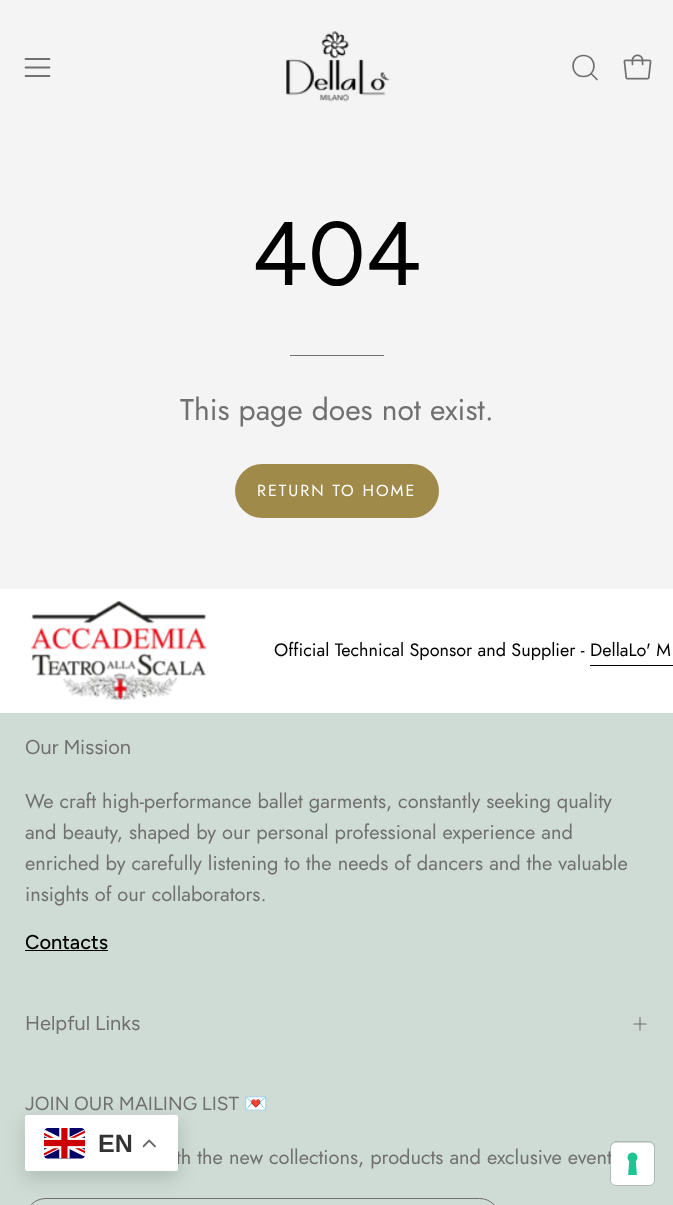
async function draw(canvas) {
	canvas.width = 673;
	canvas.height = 1205;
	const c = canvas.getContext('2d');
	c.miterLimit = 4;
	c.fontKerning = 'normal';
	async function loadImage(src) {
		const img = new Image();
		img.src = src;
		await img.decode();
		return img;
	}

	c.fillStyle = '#f4f4f4';
	c.fillRect(0, 0, 673, 1205);
	c.beginPath();
	c.moveTo(25.5, 67.5);
	c.lineTo(49.5, 67.5);
	c.moveTo(25.5, 59);
	c.lineTo(49.5, 59);
	c.moveTo(25.5, 76);
	c.lineTo(49.5, 76);
	c.strokeStyle = '#707070';
	c.lineWidth = 1.8;
	c.lineCap = 'round';
	c.lineJoin = 'round';
	c.stroke();
	c.drawImage(await loadImage('img1.png'), 286, 31, 104, 71);
	c.beginPath();
	c.moveTo(583.5, 76.5);
	c.bezierCurveTo(597.5, 76.5, 597.5, 55.5, 583.5, 55.5);
	c.bezierCurveTo(569.5, 55.5, 569.5, 76.5, 583.5, 76.5);
	c.closePath();
	c.moveTo(591, 73.5);
	c.lineTo(597, 79.5);
	c.lineWidth = 1.7;
	c.stroke();
	c.drawImage(await loadImage('img2.png'), 623, 54, 29, 26);
	c.font = '90px Figtree';
	c.fillStyle = '#000';
	c.fillText('404', 252, 285);
	c.fillStyle = '#707070';
	c.fillRect(290, 355, 94, 1);
	c.font = '30px Jost';
	c.fillText('This page does not exist.', 180, 420);
	c.fillStyle = '#9f8a49';
	c.beginPath();
	c.roundRect(235, 464, 204, 54, 27);
	c.fill();
	c.letterSpacing = '2px';
	c.font = '16px Jost';
	c.fillStyle = '#fff';
	c.fillText('RETURN TO HOME', 257, 496);
	c.fillRect(0, 589, 673, 124);
	c.drawImage(await loadImage('img3.png'), 31, 601, 176, 99);
	c.letterSpacing = '0px';
	c.font = '18px Jost';
	c.fillStyle = '#000';
	c.fillText('Official Technical Sponsor and Supplier - DellaLo\' M', 274, 656);
	c.fillRect(590, 665, 83, 1);
	c.fillStyle = '#cedcd5';
	c.fillRect(0, 713, 673, 492);
	c.font = '20px Figtree';
	c.fillStyle = '#707070';
	c.fillText('Our Mission', 25, 754);
	c.font = '20px Jost';
	for (const [text, x, y] of [
		['We craft high-performance ballet garments, constantly seeking quality', 25, 808],
		['and beauty, shaped by our personal professional experience and', 25, 839],
		['enriched by carefully listening to the needs of dancers and the valuable', 25, 870],
		['insights of our collaborators.', 25, 901],
	]) {
		c.fillText(text, x, y);
	}
	c.font = '500 20px Figtree';
	c.fillStyle = '#000';
	c.fillText('Contacts', 25, 949);
	c.fillRect(25, 950, 83, 1);
	c.font = '20px Figtree';
	c.fillStyle = '#707070';
	c.fillText('Helpful Links', 25, 1030);
	c.beginPath();
	c.moveTo(634, 1024);
	c.lineTo(646, 1024);
	c.moveTo(640, 1017.5);
	c.lineTo(640, 1030);
	c.lineWidth = 1.1;
	c.stroke();
	c.font = '19px Figtree';
	c.fillText('JOIN OUR MAILING LIST', 25, 1110);
	c.font = '19px Noto Color Emoji';
	c.fillText('💌', 244, 1110);
	c.font = '20px Jost';
	c.fillText('th the new collections, products and exclusive event', 176, 1164);
	c.beginPath();
	c.roundRect(25.5, 1198.5, 474, 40, 32);
	c.lineWidth = 1;
	c.lineJoin = 'miter';
	c.stroke();
	c.fillStyle = '#00000026';
	c.filter = 'blur(9.5px)';
	c.beginPath();
	c.roundRect(25, 1121, 153, 57, 2.5);
	c.fill();
	c.filter = 'none';
	c.fillStyle = '#fff';
	c.beginPath();
	c.roundRect(25, 1115, 153, 56, 2.5);
	c.fill();
	c.drawImage(await loadImage('img4.png'), 44, 1128, 41, 31);
	c.font = 'bold 25px Liberation Sans';
	c.fillStyle = '#333';
	c.fillText('EN', 98, 1152);
	c.drawImage(await loadImage('img5.png'), 143, 1139, 13, 9);
	c.beginPath();
	c.roundRect(610.5, 1141.5, 44, 44, 5.5);
	c.strokeStyle = '#00000026';
	c.stroke();
	c.fillStyle = '#fff';
	c.beginPath();
	c.roundRect(611, 1143, 43, 42, 5);
	c.fill();
	c.drawImage(await loadImage('img6.png'), 627, 1152, 11, 23);
}

draw(document.querySelector('canvas'));
